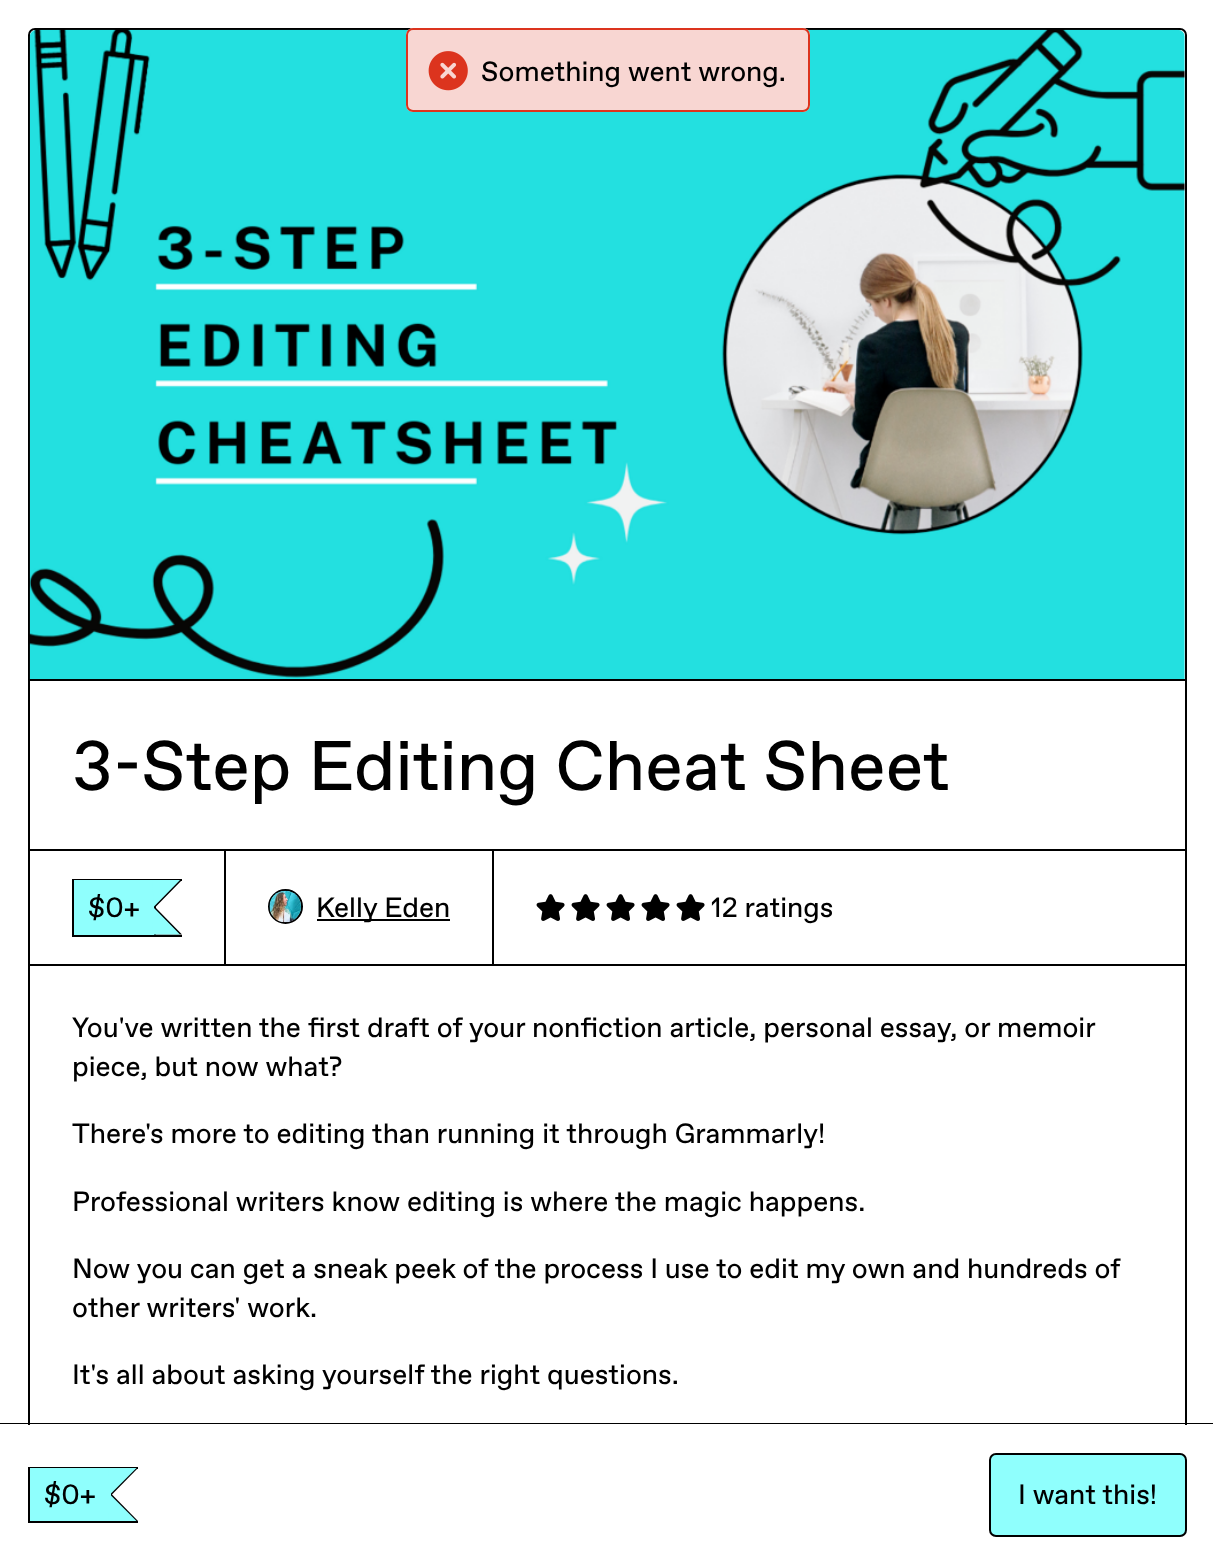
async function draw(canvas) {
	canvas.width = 1213;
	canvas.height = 1564;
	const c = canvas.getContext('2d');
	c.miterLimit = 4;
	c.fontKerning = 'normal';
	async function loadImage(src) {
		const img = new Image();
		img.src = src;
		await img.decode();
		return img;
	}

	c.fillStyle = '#fff';
	c.fillRect(0, 0, 1213, 1564);
	c.beginPath();
	c.roundRect(29, 29, 1157, 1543, 6);
	c.strokeStyle = '#000';
	c.lineWidth = 2;
	c.stroke();
	c.drawImage(await loadImage('img2.png'), 29, 29, 1156, 650);
	c.beginPath();
	c.roundRect(406, 28, 404, 84, 7);
	c.fill();
	c.fillStyle = '#dc341e33';
	c.beginPath();
	c.roundRect(407, 29, 402, 82, 6);
	c.fill();
	c.strokeStyle = '#dc341e';
	c.stroke();
	c.drawImage(await loadImage('img1.png'), 428, 51, 40, 40);
	c.font = '28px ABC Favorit';
	c.fillStyle = '#000';
	c.fillText('Something went wrong.', 481, 81);
	c.fillRect(30, 679, 1155, 2);
	c.font = '70px ABC Favorit';
	c.fillText('3-Step Editing Cheat Sheet', 72, 790);
	c.fillRect(494, 849, 691, 2);
	c.strokeStyle = '#000';
	c.strokeRect(29, 850, 196, 115);
	for (const [x, y, w, h, color] of [
		[72, 879, 110, 2, '#000'],
		[72, 935, 110, 2, '#000'],
		[72, 879, 2, 57, '#000'],
		[74, 880, 80, 55, '#8ffffd'],
	]) {
		c.fillStyle = color;
		c.fillRect(x, y, w, h);
	}
	c.fillStyle = '#000';
	c.beginPath();
	c.moveTo(154, 880);
	c.lineTo(182, 880);
	c.lineTo(156, 906.5);
	c.closePath();
	c.moveTo(182, 934.5);
	c.lineTo(154, 934.5);
	c.lineTo(156, 908);
	c.closePath();
	c.fill();
	c.fillRect(154, 904, 2, 31);
	c.fillStyle = '#8ffffd';
	c.beginPath();
	c.moveTo(152, 880);
	c.lineTo(180, 880);
	c.lineTo(154, 906.5);
	c.closePath();
	c.moveTo(180, 934.5);
	c.lineTo(152, 934.5);
	c.lineTo(154, 908);
	c.closePath();
	c.fill();
	c.font = '28px ABC Favorit';
	c.fillStyle = '#000';
	c.fillText('$0+', 88, 917);
	c.strokeRect(225, 850, 268, 115);
	c.beginPath();
	c.arc(285.5, 906.5, 16.5, 0, 2 * Math.PI);
	c.stroke();
	c.drawImage(await loadImage('img3.png'), 269, 890, 32, 33);
	c.fillRect(317, 919, 133, 2);
	c.fillText('Kelly Eden', 316, 917);
	c.drawImage(await loadImage('img4.png'), 536, 894, 29, 27);
	c.drawImage(await loadImage('img4.png'), 571, 894, 29, 27);
	c.drawImage(await loadImage('img4.png'), 606, 894, 29, 27);
	c.drawImage(await loadImage('img4.png'), 641, 894, 29, 27);
	c.drawImage(await loadImage('img4.png'), 676, 894, 29, 27);
	c.fillText('12 ratings', 711, 917);
	c.fillRect(494, 964, 691, 2);
	for (const [text, x, y] of [
		['You\'ve written the first draft of your nonfiction article, personal essay, or memoir', 72, 1037],
		['piece, but now what?', 72, 1076],
		['There\'s more to editing than running it through Grammarly!', 72, 1143],
		['Professional writers know editing is where the magic happens.', 72, 1211],
		['Now you can get a sneak peek of the process I use to edit my own and hundreds of', 72, 1278],
		['other writers\' work.', 72, 1317],
		['It\'s all about asking yourself the right questions.', 72, 1384],
	]) {
		c.fillText(text, x, y);
	}
	c.beginPath();
	c.moveTo(0, 1423);
	c.lineTo(0, 1424);
	c.lineTo(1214, 1424);
	c.lineTo(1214, 1563);
	c.lineTo(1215, 1563);
	c.lineTo(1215, 1423);
	c.closePath();
	c.fill();
	for (const [x, y, w, h, color] of [
		[28, 1425, 1159, 139, '#fff'],
		[28, 1467, 110, 2, '#000'],
		[28, 1521, 110, 2, '#000'],
		[28, 1467, 2, 56, '#000'],
		[30, 1468, 79, 53, '#8ffffd'],
	]) {
		c.fillStyle = color;
		c.fillRect(x, y, w, h);
	}
	c.fillStyle = '#000';
	c.beginPath();
	c.moveTo(110, 1468);
	c.lineTo(138, 1468);
	c.lineTo(112, 1494.5);
	c.closePath();
	c.fill();
	c.beginPath();
	c.moveTo(138, 1521);
	c.lineTo(110, 1521);
	c.lineTo(112, 1494.5);
	c.closePath();
	c.fill();
	c.fillRect(111, 1492, 1, 5);
	c.fillStyle = '#8ffffd';
	c.beginPath();
	c.moveTo(108.5, 1468);
	c.lineTo(136.5, 1468);
	c.lineTo(110, 1494.5);
	c.closePath();
	c.fill();
	c.beginPath();
	c.moveTo(136.5, 1521);
	c.lineTo(108.5, 1521);
	c.lineTo(110, 1494.5);
	c.closePath();
	c.fill();
	c.fillRect(109, 1477, 2, 35);
	c.fillStyle = '#000';
	c.fillText('$0+', 44, 1504);
	c.fillStyle = '#8ffffd';
	c.beginPath();
	c.roundRect(990, 1454, 196, 82, 6);
	c.fill();
	c.stroke();
	c.fillStyle = '#000';
	c.fillText('I want this!', 1018, 1504);
}

draw(document.querySelector('canvas'));
